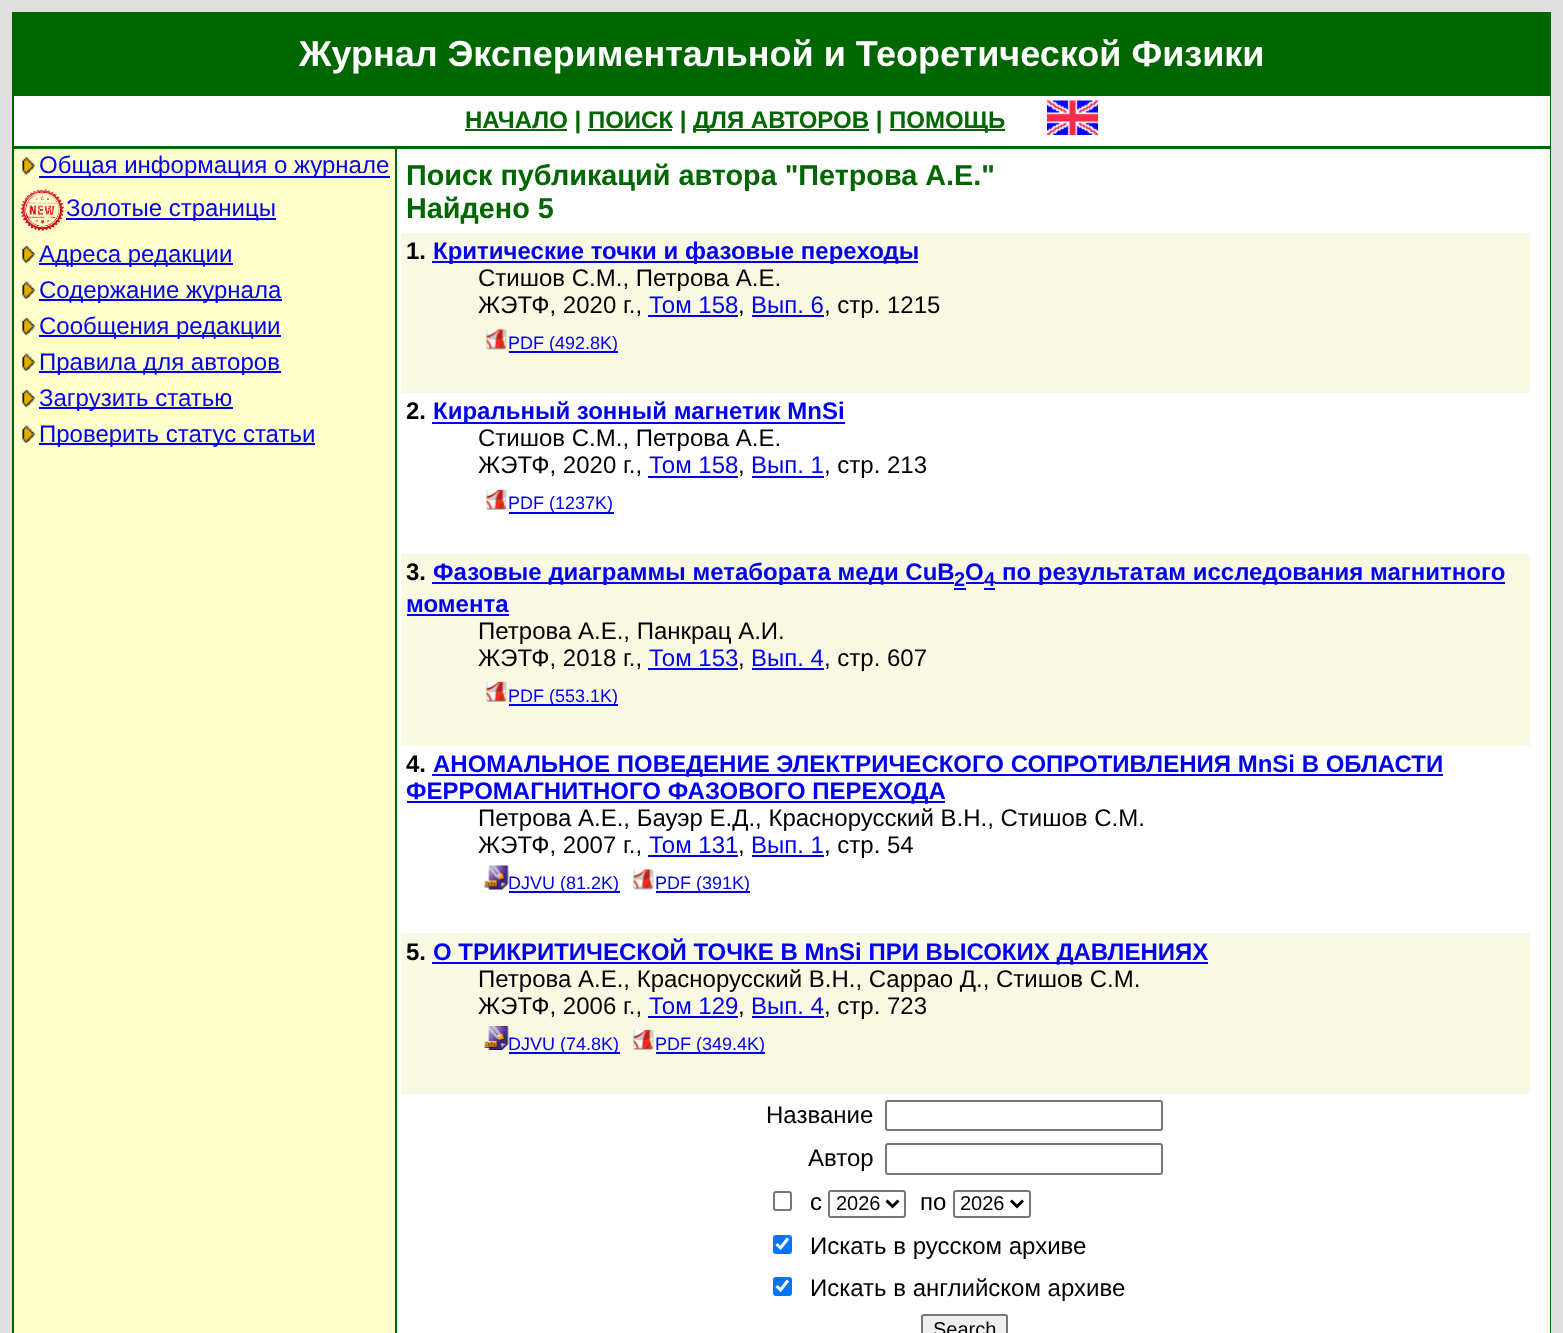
async function draw(canvas) {
	canvas.width = 1563;
	canvas.height = 1333;
	const c = canvas.getContext('2d');
	c.miterLimit = 4;
	c.fontKerning = 'normal';
	async function loadImage(src) {
		const img = new Image();
		img.src = src;
		await img.decode();
		return img;
	}

	c.fillStyle = '#e0e0e0';
	c.fillRect(0, 0, 1563, 1333);
	c.fillStyle = '#060';
	c.fillRect(12, 12, 1539, 1321);
	c.fillStyle = '#fff';
	c.fillRect(14, 96, 1536, 1237);
	c.font = 'bold 36px Liberation Sans';
	c.fillText('Журнал Экспериментальной и Теоретической Физики', 299, 66);
	c.fillStyle = '#060';
	c.fillRect(465, 129, 102, 2);
	c.font = 'bold 24px Liberation Sans';
	c.fillText('НАЧАЛО | ПОИСК |', 465, 128);
	c.fillRect(693, 129, 176, 2);
	c.fillText('ДЛЯ АВТОРОВ |', 693, 128);
	c.fillRect(890, 129, 115, 2);
	c.fillText('ПОМОЩЬ', 889, 128);
	c.fillRect(588, 129, 84, 2);
	c.drawImage(await loadImage('img1.png'), 1047, 100, 51, 35);
	c.fillRect(14, 146, 1536, 3);
	c.fillStyle = '#ffc';
	c.fillRect(14, 149, 381, 1184);
	c.drawImage(await loadImage('img2.png'), 21, 157, 14, 18);
	c.fillStyle = '#00e';
	c.fillRect(39, 176, 351, 2);
	c.font = '24px Liberation Sans';
	c.fillText('Общая информация о журнале', 39, 173);
	c.drawImage(await loadImage('img3.png'), 19, 189, 45, 42);
	c.fillRect(66, 218, 210, 2);
	c.fillText('Золотые страницы', 66, 216);
	c.drawImage(await loadImage('img4.png'), 21, 245, 14, 18);
	c.fillRect(39, 263, 194, 2);
	c.fillText('Адреса редакции', 39, 262);
	c.drawImage(await loadImage('img4.png'), 21, 281, 14, 18);
	c.fillRect(39, 299, 243, 2);
	c.fillText('Содержание журнала', 39, 298);
	c.drawImage(await loadImage('img4.png'), 21, 317, 14, 18);
	c.fillRect(39, 335, 242, 2);
	c.fillText('Сообщения редакции', 39, 334);
	c.drawImage(await loadImage('img4.png'), 21, 353, 14, 18);
	c.fillRect(39, 371, 242, 2);
	c.fillText('Правила для авторов', 39, 370);
	c.drawImage(await loadImage('img4.png'), 21, 389, 14, 18);
	c.fillRect(39, 407, 194, 2);
	c.fillText('Загрузить статью', 39, 406);
	c.drawImage(await loadImage('img4.png'), 21, 425, 14, 18);
	c.fillRect(39, 443, 276, 2);
	c.fillText('Проверить статус статьи', 39, 442);
	c.fillStyle = '#060';
	c.fillRect(395, 149, 2, 1184);
	c.font = 'bold 28.8px Liberation Sans';
	c.fillText('Поиск публикаций автора "Петрова А.Е."', 406, 185);
	c.fillText('Найдено 5', 406, 218);
	c.fillStyle = '#f8f8e3';
	c.fillRect(401, 233, 1129, 160);
	c.font = 'bold 24px Liberation Sans';
	c.fillStyle = '#000';
	c.fillText('1.', 406, 259);
	c.fillStyle = '#00e';
	c.fillRect(432, 261, 486, 2);
	c.fillText('Критические точки и фазовые переходы', 433, 259);
	c.font = '24px Liberation Sans';
	c.fillStyle = '#000';
	c.fillText('Стишов С.М., Петрова А.Е.', 478, 286);
	c.fillText('ЖЭТФ, 2020 г.,', 478, 313);
	c.fillStyle = '#00e';
	c.fillText('Том 158', 649, 313);
	c.fillRect(648, 315, 90, 2);
	c.fillStyle = '#000';
	c.fillText(',', 738, 313);
	c.fillStyle = '#00e';
	c.fillText('Вып. 6', 751, 313);
	c.fillRect(752, 315, 72, 2);
	c.fillStyle = '#000';
	c.fillText(', стр. 1215', 824, 313);
	c.drawImage(await loadImage('img5.png'), 486, 328, 21, 22);
	c.fillStyle = '#00e';
	c.fillRect(509, 351, 109, 2);
	c.font = '18px Liberation Sans';
	c.fillText('PDF (492.8K)', 508, 349);
	c.font = 'bold 24px Liberation Sans';
	c.fillStyle = '#000';
	c.fillText('2.', 406, 419);
	c.fillStyle = '#00e';
	c.fillRect(432, 422, 413, 2);
	c.fillText('Киральный зонный магнетик MnSi', 433, 419);
	c.font = '24px Liberation Sans';
	c.fillStyle = '#000';
	c.fillText('Стишов С.М., Петрова А.Е.', 478, 446);
	c.fillText('ЖЭТФ, 2020 г.,', 478, 473);
	c.fillStyle = '#00e';
	c.fillText('Том 158', 649, 473);
	c.fillRect(648, 476, 90, 2);
	c.fillStyle = '#000';
	c.fillText(',', 738, 473);
	c.fillStyle = '#00e';
	c.fillText('Вып. 1', 751, 473);
	c.fillRect(752, 476, 72, 2);
	c.fillStyle = '#000';
	c.fillText(', стр. 213', 824, 473);
	c.drawImage(await loadImage('img6.png'), 486, 489, 21, 21);
	c.fillStyle = '#00e';
	c.fillRect(509, 512, 105, 2);
	c.font = '18px Liberation Sans';
	c.fillText('PDF (1237K)', 508, 509);
	c.fillStyle = '#f8f8e3';
	c.fillRect(401, 554, 1129, 192);
	c.font = 'bold 24px Liberation Sans';
	c.fillStyle = '#000';
	c.fillText('3.', 406, 580);
	c.fillStyle = '#00e';
	c.fillRect(432, 582, 522, 2);
	c.fillText('Фазовые диаграммы метабората меди CuB', 433, 580);
	c.font = 'bold 20px Liberation Sans';
	c.fillText('2', 954, 586);
	c.fillRect(954, 588, 12, 2);
	c.font = 'bold 24px Liberation Sans';
	c.fillText('O', 965, 580);
	c.font = 'bold 20px Liberation Sans';
	c.fillText('4', 984, 586);
	for (const [x, y, w, h, color] of [
		[966, 582, 18, 2, '#00e'],
		[984, 588, 11, 2, '#00e'],
		[995, 582, 510, 2, '#00e'],
	]) {
		c.fillStyle = color;
		c.fillRect(x, y, w, h);
	}
	c.font = 'bold 24px Liberation Sans';
	c.fillText('по результатам исследования магнитного', 1002, 580);
	c.fillText('момента', 406, 612);
	c.fillRect(407, 614, 102, 2);
	c.font = '24px Liberation Sans';
	c.fillStyle = '#000';
	c.fillText('Петрова А.Е., Панкрац А.И.', 478, 639);
	c.fillText('ЖЭТФ, 2018 г.,', 478, 666);
	c.fillStyle = '#00e';
	c.fillText('Том 153', 649, 666);
	c.fillRect(648, 668, 90, 2);
	c.fillStyle = '#000';
	c.fillText(',', 738, 666);
	c.fillStyle = '#00e';
	c.fillText('Вып. 4', 751, 666);
	c.fillRect(752, 668, 72, 2);
	c.fillStyle = '#000';
	c.fillText(', стр. 607', 824, 666);
	c.drawImage(await loadImage('img7.png'), 486, 681, 21, 21);
	c.fillStyle = '#00e';
	c.fillRect(509, 704, 109, 2);
	c.font = '18px Liberation Sans';
	c.fillText('PDF (553.1K)', 508, 702);
	c.font = 'bold 24px Liberation Sans';
	c.fillStyle = '#000';
	c.fillText('4.', 406, 772);
	c.fillStyle = '#00e';
	c.fillRect(432, 774, 1011, 2);
	c.fillText('АНОМАЛЬНОЕ ПОВЕДЕНИЕ ЭЛЕКТРИЧЕСКОГО СОПРОТИВЛЕНИЯ MnSi В ОБЛАСТИ', 433, 772);
	c.fillRect(407, 801, 538, 2);
	c.fillText('ФЕРРОМАГНИТНОГО ФАЗОВОГО ПЕРЕХОДА', 406, 799);
	c.font = '24px Liberation Sans';
	c.fillStyle = '#000';
	c.fillText('Петрова А.Е., Бауэр Е.Д., Краснорусский В.Н., Стишов С.М.', 478, 826);
	c.fillText('ЖЭТФ, 2007 г.,', 478, 853);
	c.fillStyle = '#00e';
	c.fillText('Том 131', 649, 853);
	c.fillRect(648, 855, 90, 2);
	c.fillStyle = '#000';
	c.fillText(',', 738, 853);
	c.fillStyle = '#00e';
	c.fillText('Вып. 1', 751, 853);
	c.fillRect(752, 855, 72, 2);
	c.fillStyle = '#000';
	c.fillText(', стр. 54', 824, 853);
	c.drawImage(await loadImage('img8.png'), 484, 865, 25, 25);
	c.fillStyle = '#00e';
	c.fillRect(509, 891, 111, 2);
	c.font = '18px Liberation Sans';
	c.fillText('DJVU (81.2K)', 508, 889);
	c.drawImage(await loadImage('img9.png'), 633, 868, 21, 22);
	c.fillRect(656, 891, 94, 2);
	c.fillText('PDF (391K)', 655, 889);
	c.fillStyle = '#f8f8e3';
	c.fillRect(401, 933, 1129, 161);
	c.font = 'bold 24px Liberation Sans';
	c.fillStyle = '#000';
	c.fillText('5.', 406, 960);
	c.fillStyle = '#00e';
	c.fillRect(432, 962, 776, 2);
	c.fillText('О ТРИКРИТИЧЕСКОЙ ТОЧКЕ В MnSi ПРИ ВЫСОКИХ ДАВЛЕНИЯХ', 433, 960);
	c.font = '24px Liberation Sans';
	c.fillStyle = '#000';
	c.fillText('Петрова А.Е., Краснорусский В.Н., Саррао Д., Стишов С.М.', 478, 987);
	c.fillText('ЖЭТФ, 2006 г.,', 478, 1014);
	c.fillStyle = '#00e';
	c.fillText('Том 129', 649, 1014);
	c.fillRect(648, 1016, 90, 2);
	c.fillStyle = '#000';
	c.fillText(',', 738, 1014);
	c.fillStyle = '#00e';
	c.fillText('Вып. 4', 751, 1014);
	c.fillRect(752, 1016, 72, 2);
	c.fillStyle = '#000';
	c.fillText(', стр. 723', 824, 1014);
	c.drawImage(await loadImage('img10.png'), 484, 1026, 25, 24);
	c.fillStyle = '#00e';
	c.fillRect(509, 1052, 111, 2);
	c.font = '18px Liberation Sans';
	c.fillText('DJVU (74.8K)', 508, 1050);
	c.drawImage(await loadImage('img7.png'), 633, 1029, 21, 21);
	c.fillRect(656, 1052, 109, 2);
	c.fillText('PDF (349.4K)', 655, 1050);
	c.font = '24px Liberation Sans';
	c.fillStyle = '#000';
	c.fillText('Название', 766, 1123);
	c.beginPath();
	c.roundRect(886, 1101, 276, 29, 2);
	c.strokeStyle = '#767676';
	c.lineWidth = 2;
	c.stroke();
	c.fillText('Автор', 808, 1166);
	c.beginPath();
	c.roundRect(886, 1144, 276, 30, 2);
	c.stroke();
	c.beginPath();
	c.roundRect(774, 1192, 17, 18, 2);
	c.stroke();
	c.fillText('с', 810, 1210);
	c.beginPath();
	c.roundRect(829, 1191, 76, 26, 2);
	c.stroke();
	c.beginPath();
	c.moveTo(886.5, 1200.5);
	c.lineTo(892.5, 1206.5);
	c.lineTo(898.5, 1200.5);
	c.strokeStyle = '#000';
	c.lineWidth = 3;
	c.stroke();
	c.font = '20px Liberation Sans';
	c.fillText('2026', 836, 1210);
	c.font = '24px Liberation Sans';
	c.fillText('по', 920, 1210);
	c.beginPath();
	c.roundRect(954, 1191, 76, 26, 2);
	c.strokeStyle = '#767676';
	c.lineWidth = 2;
	c.stroke();
	c.beginPath();
	c.moveTo(1011, 1200.5);
	c.lineTo(1017, 1206.5);
	c.lineTo(1023, 1200.5);
	c.strokeStyle = '#000';
	c.lineWidth = 3;
	c.stroke();
	c.font = '20px Liberation Sans';
	c.fillText('2026', 960, 1210);
	c.fillStyle = '#0075ff';
	c.beginPath();
	c.roundRect(773, 1235, 19, 19, 3);
	c.fill();
	c.beginPath();
	c.moveTo(776.5, 1244);
	c.lineTo(780.5, 1248);
	c.lineTo(788, 1238.5);
	c.strokeStyle = '#fff';
	c.lineWidth = 3.1;
	c.stroke();
	c.font = '24px Liberation Sans';
	c.fillStyle = '#000';
	c.fillText('Искать в русском архиве', 810, 1254);
	c.fillStyle = '#0075ff';
	c.beginPath();
	c.roundRect(773, 1277, 19, 19, 3);
	c.fill();
	c.beginPath();
	c.moveTo(776.5, 1286);
	c.lineTo(780.5, 1290);
	c.lineTo(788, 1280.5);
	c.stroke();
	c.fillStyle = '#000';
	c.fillText('Искать в английском архиве', 810, 1296);
	c.fillStyle = '#efefef';
	c.beginPath();
	c.roundRect(922, 1315, 85, 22, 2);
	c.fill();
	c.strokeStyle = '#767676';
	c.lineWidth = 2;
	c.stroke();
	c.font = '20px Liberation Sans';
	c.fillStyle = '#000';
	c.fillText('Search', 933, 1336);
}

draw(document.querySelector('canvas'));
